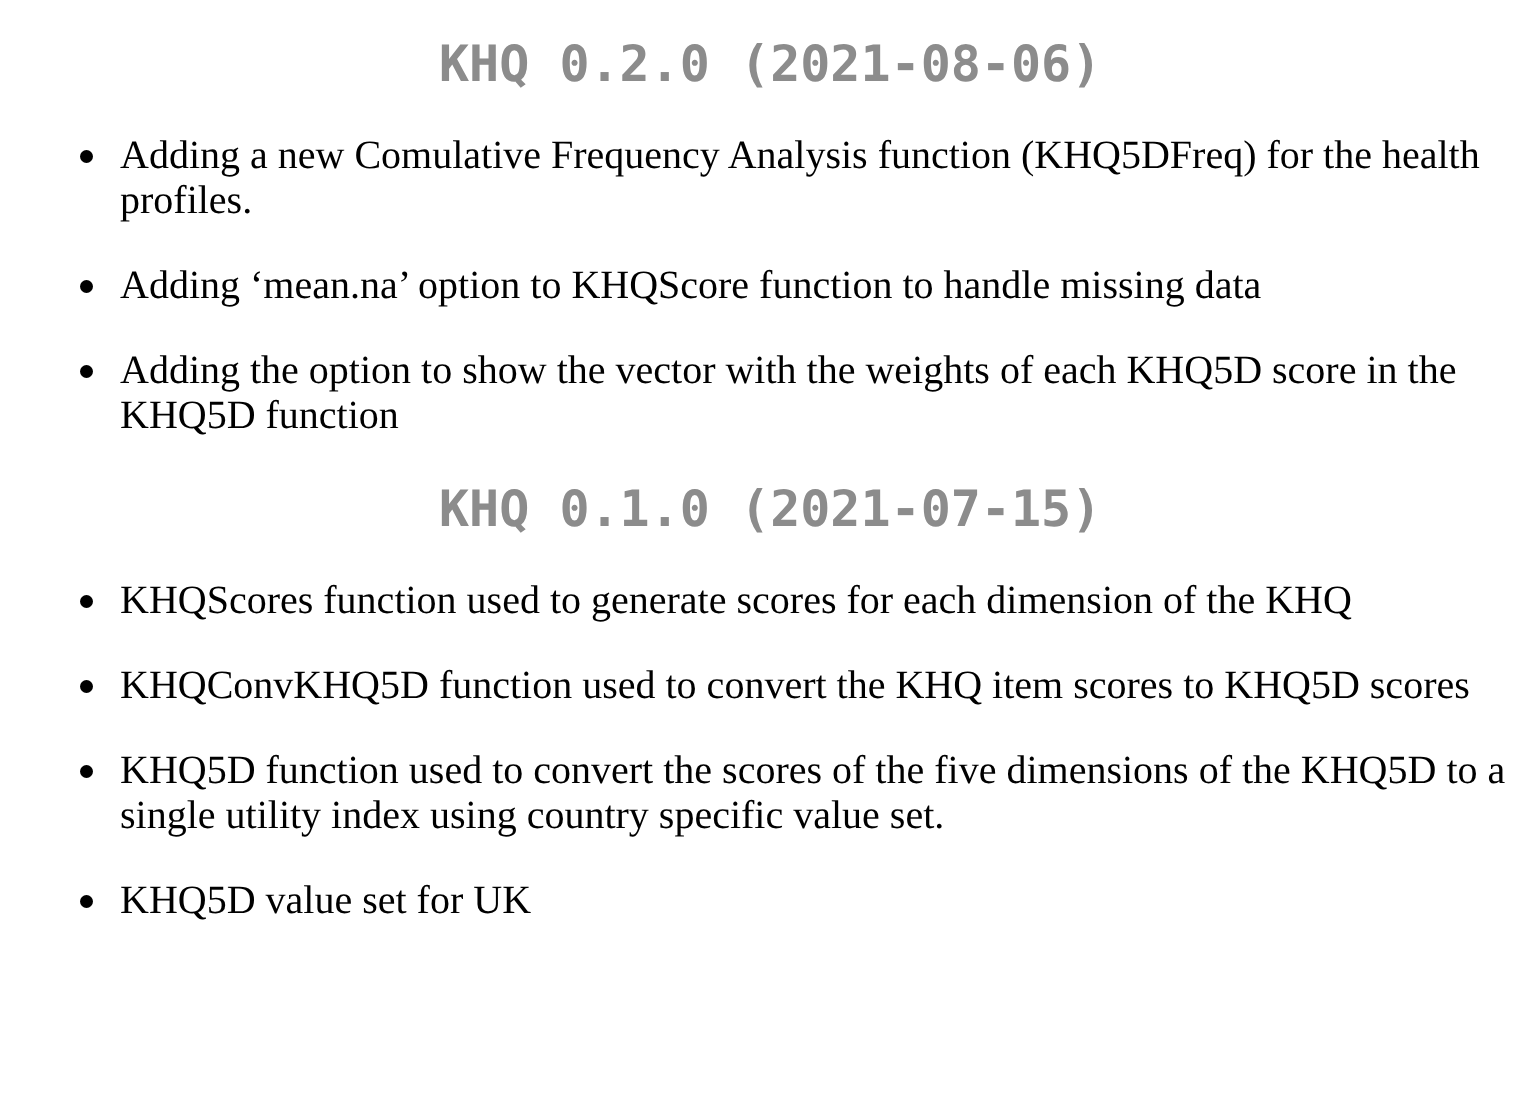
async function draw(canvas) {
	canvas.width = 1540;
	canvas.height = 1111;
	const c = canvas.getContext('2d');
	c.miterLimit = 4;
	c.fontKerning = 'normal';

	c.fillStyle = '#fff';
	c.fillRect(0, 0, 1540, 1111);
	c.font = 'bold 50px DejaVu Sans Mono';
	c.fillStyle = '#8c8c8c';
	c.fillText('KHQ 0.2.0 (2021-08-06)', 439, 81);
	c.fillStyle = '#000';
	c.beginPath();
	c.arc(86.5, 156.5, 6.5, 0, 2 * Math.PI);
	c.fill();
	c.font = '40px Liberation Serif';
	c.fillText('Adding a new Comulative Frequency Analysis function (KHQ5DFreq) for the health', 120, 168);
	c.fillText('profiles.', 120, 213);
	c.beginPath();
	c.arc(86.5, 286.5, 6.5, 0, 2 * Math.PI);
	c.fill();
	c.fillText('Adding ‘mean.na’ option to KHQScore function to handle missing data', 120, 298);
	c.beginPath();
	c.arc(86.5, 371.5, 6.5, 0, 2 * Math.PI);
	c.fill();
	c.fillText('Adding the option to show the vector with the weights of each KHQ5D score in the', 120, 383);
	c.fillText('KHQ5D function', 120, 428);
	c.font = 'bold 50px DejaVu Sans Mono';
	c.fillStyle = '#8c8c8c';
	c.fillText('KHQ 0.1.0 (2021-07-15)', 439, 526);
	c.fillStyle = '#000';
	c.beginPath();
	c.arc(86.5, 601.5, 6.5, 0, 2 * Math.PI);
	c.fill();
	c.font = '40px Liberation Serif';
	c.fillText('KHQScores function used to generate scores for each dimension of the KHQ', 120, 613);
	c.beginPath();
	c.arc(86.5, 686.5, 6.5, 0, 2 * Math.PI);
	c.fill();
	c.fillText('KHQConvKHQ5D function used to convert the KHQ item scores to KHQ5D scores', 120, 698);
	c.beginPath();
	c.arc(86.5, 771.5, 6.5, 0, 2 * Math.PI);
	c.fill();
	c.fillText('KHQ5D function used to convert the scores of the five dimensions of the KHQ5D to a', 120, 783);
	c.fillText('single utility index using country specific value set.', 120, 828);
	c.beginPath();
	c.arc(86.5, 901.5, 6.5, 0, 2 * Math.PI);
	c.fill();
	c.fillText('KHQ5D value set for UK', 120, 913);
}

draw(document.querySelector('canvas'));
